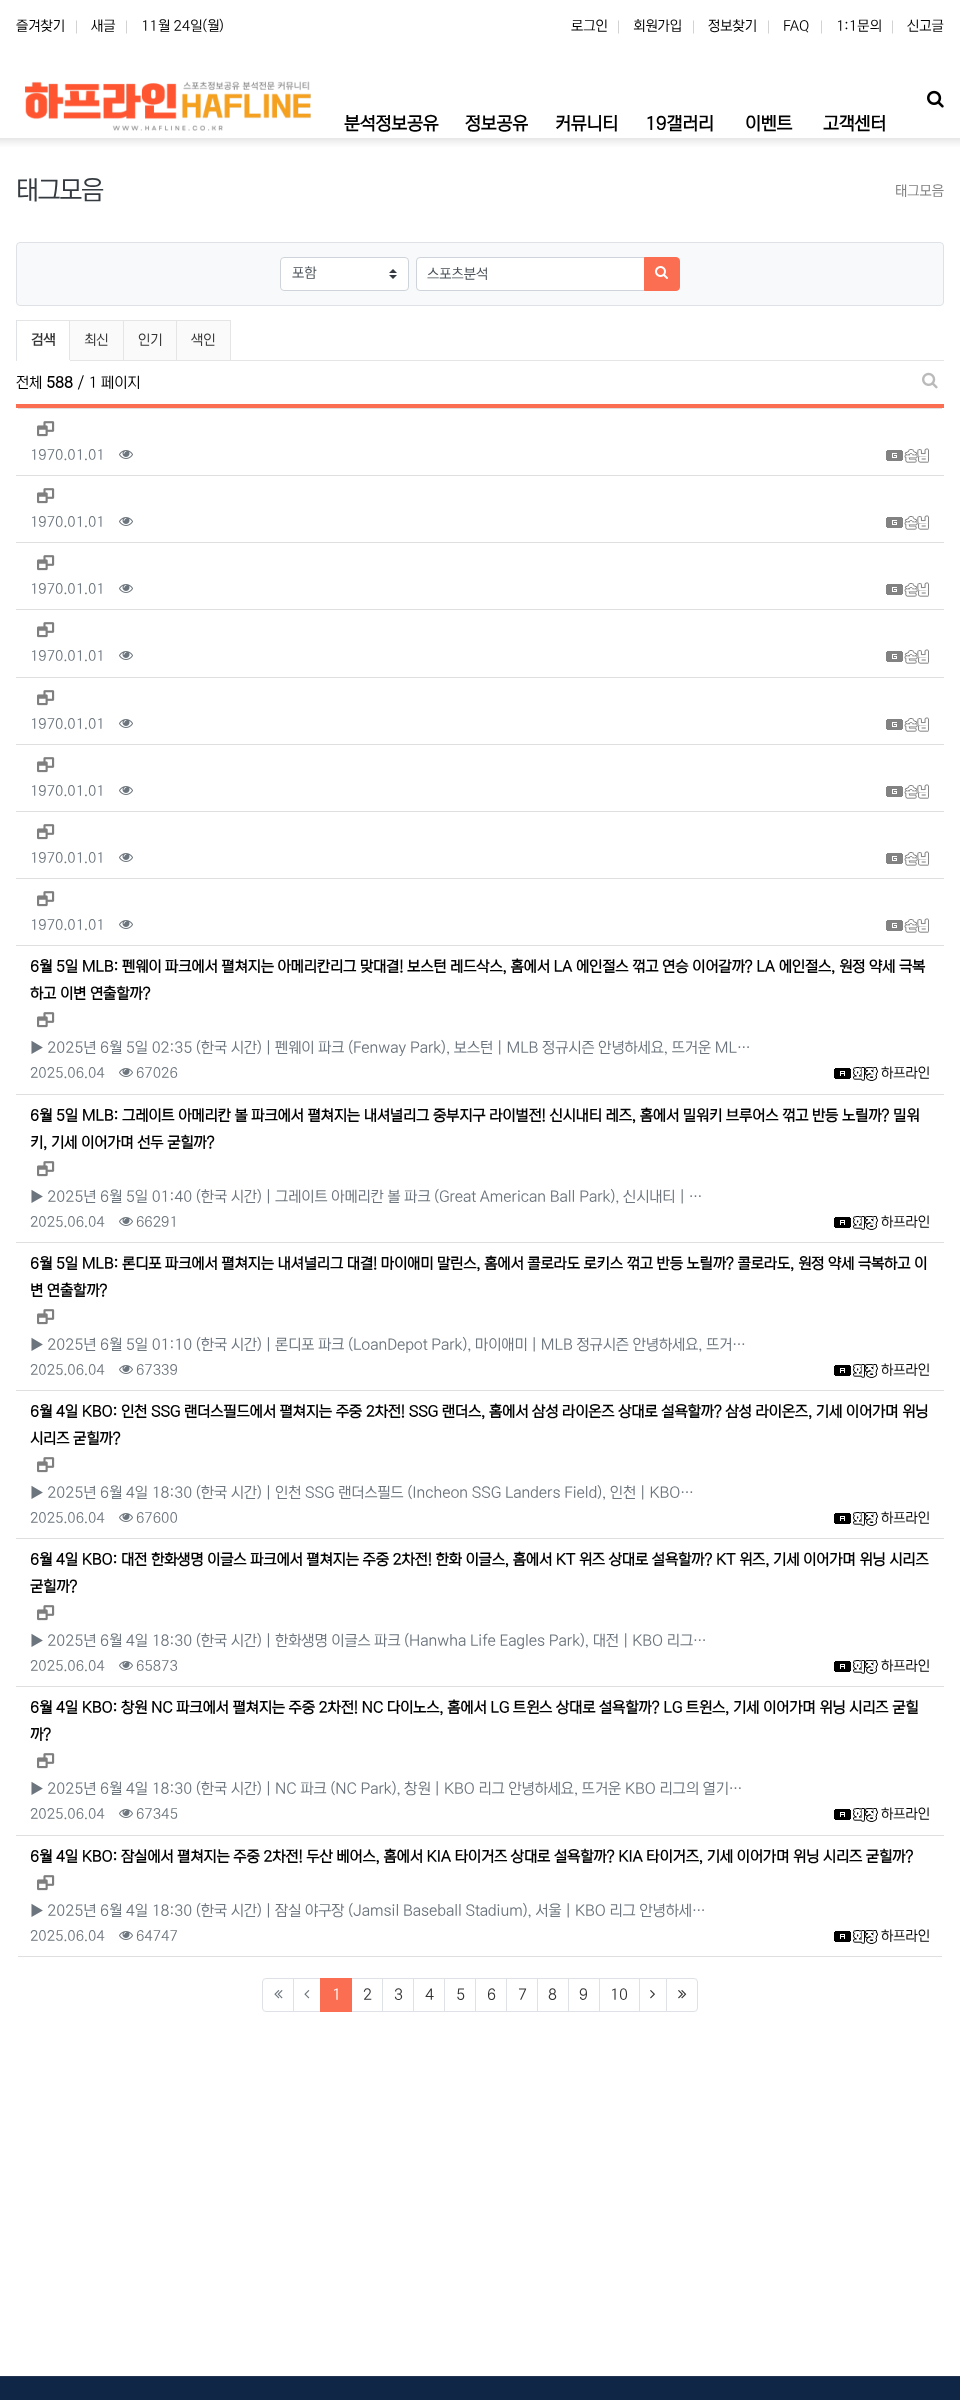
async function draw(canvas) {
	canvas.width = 960;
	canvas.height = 2400;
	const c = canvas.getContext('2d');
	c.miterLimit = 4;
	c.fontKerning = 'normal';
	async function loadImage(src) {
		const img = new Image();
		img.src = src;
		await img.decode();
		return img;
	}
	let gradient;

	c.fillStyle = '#fff';
	c.fillRect(0, 0, 960, 2400);
	c.font = '14px "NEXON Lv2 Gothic"';
	c.fillStyle = '#000';
	c.fillText('즐겨찾기', 16, 30);
	c.font = '14px Dotum';
	c.fillStyle = '#ccc';
	c.fillText('|', 73, 32);
	c.font = '14px "NEXON Lv2 Gothic"';
	c.fillStyle = '#000';
	c.fillText('새글', 91, 30);
	c.font = '14px Dotum';
	c.fillStyle = '#ccc';
	c.fillText('|', 123, 32);
	c.font = '14px "NEXON Lv2 Gothic"';
	c.fillStyle = '#000';
	c.fillText('11월 24일(월)', 141, 30);
	c.fillText('로그인', 571, 30);
	c.font = '14px Dotum';
	c.fillStyle = '#ccc';
	c.fillText('|', 615, 32);
	c.font = '14px "NEXON Lv2 Gothic"';
	c.fillStyle = '#000';
	c.fillText('회원가입', 633, 30);
	c.font = '14px Dotum';
	c.fillStyle = '#ccc';
	c.fillText('|', 690, 32);
	c.font = '14px "NEXON Lv2 Gothic"';
	c.fillStyle = '#000';
	c.fillText('정보찾기', 708, 30);
	c.font = '14px Dotum';
	c.fillStyle = '#ccc';
	c.fillText('|', 765, 32);
	c.font = '14px "NEXON Lv2 Gothic"';
	c.fillStyle = '#000';
	c.fillText('FAQ', 783, 30);
	c.font = '14px Dotum';
	c.fillStyle = '#ccc';
	c.fillText('|', 818, 32);
	c.font = '14px "NEXON Lv2 Gothic"';
	c.fillStyle = '#000';
	c.fillText('1:1문의', 836, 30);
	c.font = '14px Dotum';
	c.fillStyle = '#ccc';
	c.fillText('|', 889, 32);
	c.font = '14px "NEXON Lv2 Gothic"';
	c.fillStyle = '#000';
	c.fillText('신고글', 907, 30);
	c.drawImage(await loadImage('img1.png'), 25, 81, 286, 50);
	c.drawImage(await loadImage('img2.png'), 927, 90, 17, 18);
	c.font = 'bold 18px "NEXON Lv2 Gothic"';
	for (const [text, x, y] of [
		['분석정보공유', 344, 129],
		['정보공유', 465, 129],
		['커뮤니티', 555, 129],
		['19갤러리', 645, 129],
		['이벤트', 745, 129],
		['고객센터', 823, 129],
	]) {
		c.fillText(text, x, y);
	}
	gradient = c.createLinearGradient(480, 138, 480, 148);
	gradient.addColorStop(0, '#e6e6e6');
	gradient.addColorStop(0.5, '#f5f5f5');
	gradient.addColorStop(1, '#fff');
	c.fillStyle = gradient;
	c.fillRect(0, 138, 960, 9);
	c.letterSpacing = '-1px';
	c.font = '26px "NEXON Lv2 Gothic"';
	c.fillStyle = '#343a40';
	c.fillText('태그모음', 16, 198);
	c.letterSpacing = '0px';
	c.font = '14px "NEXON Lv2 Gothic"';
	c.fillStyle = '#808080';
	c.fillText('태그모음', 895, 195);
	c.fillStyle = '#f8f9fa';
	c.beginPath();
	c.roundRect(16.5, 242.5, 927, 63, 3.5);
	c.fill();
	c.strokeStyle = '#dee2e6';
	c.stroke();
	c.fillStyle = '#fff';
	c.beginPath();
	c.roundRect(280, 257, 129, 34, 4);
	c.fill();
	c.drawImage(await loadImage('img3.png'), 389, 269, 8, 10);
	c.beginPath();
	c.roundRect(280.5, 257.5, 128, 33, 3.5);
	c.strokeStyle = '#ced4da';
	c.stroke();
	c.fillStyle = '#495057';
	c.fillText('포함', 292, 277);
	c.fillStyle = '#fff';
	c.beginPath();
	c.roundRect(417, 258, 227, 32, [2.5, 0, 0, 2.5]);
	c.fill();
	c.beginPath();
	c.roundRect(416.5, 257.5, 228, 33, [3.5, 0, 0, 3.5]);
	c.stroke();
	c.fillStyle = '#495057';
	c.fillText('스포츠분석', 427, 278);
	c.fillStyle = '#fc6e51';
	c.beginPath();
	c.roundRect(644.5, 257.5, 35, 33, [0, 3.5, 3.5, 0]);
	c.fill();
	c.strokeStyle = '#fc6e51';
	c.stroke();
	c.drawImage(await loadImage('img4.png'), 655, 266, 13, 13);
	for (const [x, y, w, h, color] of [
		[16, 320, 1, 41, '#dee2e6'],
		[17, 320, 214, 1, '#e5e5e5'],
		[16, 360, 928, 1, '#e5e5e5'],
		[69, 320, 1, 41, '#e5e5e5'],
		[17, 360, 53, 1, '#fff'],
	]) {
		c.fillStyle = color;
		c.fillRect(x, y, w, h);
	}
	c.font = 'bold 14px "NEXON Lv2 Gothic"';
	c.fillStyle = '#333';
	c.fillText('검색', 31, 344);
	c.fillStyle = '#fafafa';
	c.fillRect(70, 321, 53, 39);
	c.fillStyle = '#e5e5e5';
	c.fillRect(123, 320, 1, 41);
	c.font = '14px "NEXON Lv2 Gothic"';
	c.fillStyle = '#333';
	c.fillText('최신', 84, 344);
	c.fillStyle = '#fafafa';
	c.fillRect(124, 321, 52, 39);
	c.fillStyle = '#e5e5e5';
	c.fillRect(176, 320, 1, 41);
	c.fillStyle = '#333';
	c.fillText('인기', 138, 344);
	c.fillStyle = '#fafafa';
	c.fillRect(177, 321, 53, 39);
	c.fillStyle = '#e5e5e5';
	c.fillRect(230, 320, 1, 41);
	c.fillStyle = '#333';
	c.fillText('색인', 191, 344);
	c.font = '15px "NEXON Lv2 Gothic"';
	c.fillStyle = '#000';
	c.fillText('전체', 16, 387);
	c.font = 'bold 15px "NEXON Lv2 Gothic"';
	c.fillText('588', 46, 387);
	c.font = '15px "NEXON Lv2 Gothic"';
	c.fillText('/ 1 페이지', 77, 387);
	c.drawImage(await loadImage('img5.png'), 922, 372, 16, 17);
	for (const [x, y, w, h, color] of [
		[16, 404, 928, 4, '#fc6e51'],
		[18, 408, 924, 1, '#dfdfdf'],
		[16, 475, 928, 1, '#dfdfdf'],
	]) {
		c.fillStyle = color;
		c.fillRect(x, y, w, h);
	}
	c.drawImage(await loadImage('img6.png'), 37, 421, 18, 16);
	c.font = '14px "NEXON Lv2 Gothic"';
	c.fillStyle = '#6c757d';
	c.fillText('1970.01.01', 30, 459);
	c.drawImage(await loadImage('img7.png'), 119, 450, 14, 9);
	c.drawImage(await loadImage('img8.png'), 886, 448, 43, 15);
	c.fillStyle = '#dfdfdf';
	c.fillRect(16, 542, 928, 1);
	c.drawImage(await loadImage('img6.png'), 37, 488, 18, 16);
	c.fillStyle = '#6c757d';
	c.fillText('1970.01.01', 30, 526);
	c.drawImage(await loadImage('img7.png'), 119, 517, 14, 9);
	c.drawImage(await loadImage('img8.png'), 886, 515, 43, 15);
	c.fillStyle = '#dfdfdf';
	c.fillRect(16, 609, 928, 1);
	c.drawImage(await loadImage('img6.png'), 37, 555, 18, 16);
	c.fillStyle = '#6c757d';
	c.fillText('1970.01.01', 30, 593);
	c.drawImage(await loadImage('img7.png'), 119, 584, 14, 9);
	c.drawImage(await loadImage('img8.png'), 886, 582, 43, 15);
	c.fillStyle = '#dfdfdf';
	c.fillRect(16, 677, 928, 1);
	c.drawImage(await loadImage('img6.png'), 37, 622, 18, 16);
	c.fillStyle = '#6c757d';
	c.fillText('1970.01.01', 30, 660);
	c.drawImage(await loadImage('img7.png'), 119, 651, 14, 9);
	c.drawImage(await loadImage('img8.png'), 886, 649, 43, 15);
	c.fillStyle = '#dfdfdf';
	c.fillRect(16, 744, 928, 1);
	c.drawImage(await loadImage('img6.png'), 37, 690, 18, 16);
	c.fillStyle = '#6c757d';
	c.fillText('1970.01.01', 30, 728);
	c.drawImage(await loadImage('img7.png'), 119, 719, 14, 9);
	c.drawImage(await loadImage('img8.png'), 886, 717, 43, 15);
	c.fillStyle = '#dfdfdf';
	c.fillRect(16, 811, 928, 1);
	c.drawImage(await loadImage('img6.png'), 37, 757, 18, 16);
	c.fillStyle = '#6c757d';
	c.fillText('1970.01.01', 30, 795);
	c.drawImage(await loadImage('img7.png'), 119, 786, 14, 9);
	c.drawImage(await loadImage('img8.png'), 886, 784, 43, 15);
	c.fillStyle = '#dfdfdf';
	c.fillRect(16, 878, 928, 1);
	c.drawImage(await loadImage('img6.png'), 37, 824, 18, 16);
	c.fillStyle = '#6c757d';
	c.fillText('1970.01.01', 30, 862);
	c.drawImage(await loadImage('img7.png'), 119, 853, 14, 9);
	c.drawImage(await loadImage('img8.png'), 886, 851, 43, 15);
	c.fillStyle = '#dfdfdf';
	c.fillRect(16, 945, 928, 1);
	c.drawImage(await loadImage('img6.png'), 37, 891, 18, 16);
	c.fillStyle = '#6c757d';
	c.fillText('1970.01.01', 30, 929);
	c.drawImage(await loadImage('img7.png'), 119, 920, 14, 9);
	c.drawImage(await loadImage('img8.png'), 886, 918, 43, 15);
	c.fillStyle = '#dfdfdf';
	c.fillRect(16, 1094, 928, 1);
	c.font = 'bold 15px "NEXON Lv2 Gothic"';
	c.fillStyle = '#000';
	c.fillText('6월 5일 MLB: 펜웨이 파크에서 펼쳐지는 아메리칸리그 맞대결! 보스턴 레드삭스, 홈에서 LA 에인절스 꺾고 연승 이어갈까? LA 에인절스, 원정 약세 극복', 30, 971);
	c.fillText('하고 이변 연출할까?', 30, 998);
	c.drawImage(await loadImage('img6.png'), 37, 1012, 18, 16);
	c.font = '15px "NEXON Lv2 Gothic"';
	c.fillStyle = '#6c757d';
	c.fillText('▶ 2025년 6월 5일 02:35 (한국 시간) | 펜웨이 파크 (Fenway Park), 보스턴 | MLB 정규시즌 안녕하세요, 뜨거운 ML…', 30, 1052);
	c.font = '14px "NEXON Lv2 Gothic"';
	c.fillText('2025.06.04', 30, 1077);
	c.drawImage(await loadImage('img7.png'), 119, 1068, 14, 9);
	c.fillText('67026', 136, 1077);
	c.drawImage(await loadImage('img9.png'), 834, 1067, 44, 14);
	c.fillStyle = '#000';
	c.fillText('하프라인', 881, 1077);
	c.fillStyle = '#dfdfdf';
	c.fillRect(16, 1242, 928, 1);
	c.font = 'bold 15px "NEXON Lv2 Gothic"';
	c.fillStyle = '#000';
	c.fillText('6월 5일 MLB: 그레이트 아메리칸 볼 파크에서 펼쳐지는 내셔널리그 중부지구 라이벌전! 신시내티 레즈, 홈에서 밀워키 브루어스 꺾고 반등 노릴까? 밀워', 30, 1120);
	c.fillText('키, 기세 이어가며 선두 굳힐까?', 30, 1147);
	c.drawImage(await loadImage('img6.png'), 37, 1161, 18, 16);
	c.font = '15px "NEXON Lv2 Gothic"';
	c.fillStyle = '#6c757d';
	c.fillText('▶ 2025년 6월 5일 01:40 (한국 시간) | 그레이트 아메리칸 볼 파크 (Great American Ball Park), 신시내티 | …', 30, 1201);
	c.font = '14px "NEXON Lv2 Gothic"';
	c.fillText('2025.06.04', 30, 1226);
	c.drawImage(await loadImage('img7.png'), 119, 1217, 14, 9);
	c.fillText('66291', 136, 1226);
	c.drawImage(await loadImage('img9.png'), 834, 1216, 44, 14);
	c.fillStyle = '#000';
	c.fillText('하프라인', 881, 1226);
	c.fillStyle = '#dfdfdf';
	c.fillRect(16, 1390, 928, 1);
	c.font = 'bold 15px "NEXON Lv2 Gothic"';
	c.fillStyle = '#000';
	c.fillText('6월 5일 MLB: 론디포 파크에서 펼쳐지는 내셔널리그 대결! 마이애미 말린스, 홈에서 콜로라도 로키스 꺾고 반등 노릴까? 콜로라도, 원정 약세 극복하고 이', 30, 1268);
	c.fillText('변 연출할까?', 30, 1295);
	c.drawImage(await loadImage('img6.png'), 37, 1309, 18, 16);
	c.font = '15px "NEXON Lv2 Gothic"';
	c.fillStyle = '#6c757d';
	c.fillText('▶ 2025년 6월 5일 01:10 (한국 시간) | 론디포 파크 (LoanDepot Park), 마이애미 | MLB 정규시즌 안녕하세요, 뜨거…', 30, 1349);
	c.font = '14px "NEXON Lv2 Gothic"';
	c.fillText('2025.06.04', 30, 1374);
	c.drawImage(await loadImage('img7.png'), 119, 1365, 14, 9);
	c.fillText('67339', 136, 1374);
	c.drawImage(await loadImage('img9.png'), 834, 1364, 44, 14);
	c.fillStyle = '#000';
	c.fillText('하프라인', 881, 1374);
	c.fillStyle = '#dfdfdf';
	c.fillRect(16, 1538, 928, 1);
	c.font = 'bold 15px "NEXON Lv2 Gothic"';
	c.fillStyle = '#000';
	c.fillText('6월 4일 KBO: 인천 SSG 랜더스필드에서 펼쳐지는 주중 2차전! SSG 랜더스, 홈에서 삼성 라이온즈 상대로 설욕할까? 삼성 라이온즈, 기세 이어가며 위닝', 30, 1416);
	c.fillText('시리즈 굳힐까?', 30, 1443);
	c.drawImage(await loadImage('img6.png'), 37, 1457, 18, 16);
	c.font = '15px "NEXON Lv2 Gothic"';
	c.fillStyle = '#6c757d';
	c.fillText('▶ 2025년 6월 4일 18:30 (한국 시간) | 인천 SSG 랜더스필드 (Incheon SSG Landers Field), 인천 | KBO…', 30, 1497);
	c.font = '14px "NEXON Lv2 Gothic"';
	c.fillText('2025.06.04', 30, 1522);
	c.drawImage(await loadImage('img7.png'), 119, 1513, 14, 9);
	c.fillText('67600', 136, 1522);
	c.drawImage(await loadImage('img9.png'), 834, 1512, 44, 14);
	c.fillStyle = '#000';
	c.fillText('하프라인', 881, 1522);
	c.fillStyle = '#dfdfdf';
	c.fillRect(16, 1686, 928, 1);
	c.font = 'bold 15px "NEXON Lv2 Gothic"';
	c.fillStyle = '#000';
	c.fillText('6월 4일 KBO: 대전 한화생명 이글스 파크에서 펼쳐지는 주중 2차전! 한화 이글스, 홈에서 KT 위즈 상대로 설욕할까? KT 위즈, 기세 이어가며 위닝 시리즈', 30, 1564);
	c.fillText('굳힐까?', 30, 1591);
	c.drawImage(await loadImage('img6.png'), 37, 1605, 18, 16);
	c.font = '15px "NEXON Lv2 Gothic"';
	c.fillStyle = '#6c757d';
	c.fillText('▶ 2025년 6월 4일 18:30 (한국 시간) | 한화생명 이글스 파크 (Hanwha Life Eagles Park), 대전 | KBO 리그…', 30, 1645);
	c.font = '14px "NEXON Lv2 Gothic"';
	c.fillText('2025.06.04', 30, 1670);
	c.drawImage(await loadImage('img7.png'), 119, 1661, 14, 9);
	c.fillText('65873', 136, 1670);
	c.drawImage(await loadImage('img9.png'), 834, 1660, 44, 14);
	c.fillStyle = '#000';
	c.fillText('하프라인', 881, 1670);
	c.fillStyle = '#dfdfdf';
	c.fillRect(16, 1835, 928, 1);
	c.font = 'bold 15px "NEXON Lv2 Gothic"';
	c.fillStyle = '#000';
	c.fillText('6월 4일 KBO: 창원 NC 파크에서 펼쳐지는 주중 2차전! NC 다이노스, 홈에서 LG 트윈스 상대로 설욕할까? LG 트윈스, 기세 이어가며 위닝 시리즈 굳힐', 30, 1712);
	c.fillText('까?', 30, 1739);
	c.drawImage(await loadImage('img6.png'), 37, 1753, 18, 16);
	c.font = '15px "NEXON Lv2 Gothic"';
	c.fillStyle = '#6c757d';
	c.fillText('▶ 2025년 6월 4일 18:30 (한국 시간) | NC 파크 (NC Park), 창원 | KBO 리그 안녕하세요, 뜨거운 KBO 리그의 열기…', 30, 1793);
	c.font = '14px "NEXON Lv2 Gothic"';
	c.fillText('2025.06.04', 30, 1818);
	c.drawImage(await loadImage('img7.png'), 119, 1809, 14, 9);
	c.fillText('67345', 136, 1818);
	c.drawImage(await loadImage('img9.png'), 834, 1808, 44, 14);
	c.fillStyle = '#000';
	c.fillText('하프라인', 881, 1818);
	c.fillStyle = '#dfdfdf';
	c.fillRect(18, 1956, 924, 1);
	c.font = 'bold 15px "NEXON Lv2 Gothic"';
	c.fillStyle = '#000';
	c.fillText('6월 4일 KBO: 잠실에서 펼쳐지는 주중 2차전! 두산 베어스, 홈에서 KIA 타이거즈 상대로 설욕할까? KIA 타이거즈, 기세 이어가며 위닝 시리즈 굳힐까?', 30, 1861);
	c.drawImage(await loadImage('img6.png'), 37, 1875, 18, 16);
	c.font = '15px "NEXON Lv2 Gothic"';
	c.fillStyle = '#6c757d';
	c.fillText('▶ 2025년 6월 4일 18:30 (한국 시간) | 잠실 야구장 (Jamsil Baseball Stadium), 서울 | KBO 리그 안녕하세…', 30, 1915);
	c.font = '14px "NEXON Lv2 Gothic"';
	c.fillText('2025.06.04', 30, 1940);
	c.drawImage(await loadImage('img7.png'), 119, 1931, 14, 9);
	c.fillText('64747', 136, 1940);
	c.drawImage(await loadImage('img9.png'), 834, 1930, 44, 14);
	c.fillStyle = '#000';
	c.fillText('하프라인', 881, 1940);
	c.beginPath();
	c.roundRect(262.5, 1978.5, 31, 33, [3.5, 0, 0, 3.5]);
	c.strokeStyle = '#dee2e6';
	c.stroke();
	c.drawImage(await loadImage('img10.png'), 274, 1990, 9, 9);
	c.strokeRect(293.5, 1978.5, 27, 33);
	c.drawImage(await loadImage('img11.png'), 304, 1990, 6, 9);
	c.strokeRect(351.5, 1978.5, 31, 33);
	c.fillStyle = '#fc6e51';
	c.fillRect(320, 1978, 32, 34);
	c.font = '15px "NEXON Lv2 Gothic"';
	c.fillStyle = '#fff';
	c.fillText('1', 332, 1999);
	c.fillStyle = '#333';
	c.fillText('2', 363, 1999);
	c.strokeRect(382.5, 1978.5, 31, 33);
	c.fillText('3', 394, 1999);
	c.strokeRect(413.5, 1978.5, 31, 33);
	c.fillText('4', 425, 1999);
	c.strokeRect(444.5, 1978.5, 31, 33);
	c.fillText('5', 456, 1999);
	c.strokeRect(475.5, 1978.5, 31, 33);
	c.fillText('6', 487, 1999);
	c.strokeRect(506.5, 1978.5, 31, 33);
	c.fillText('7', 518, 1999);
	c.strokeRect(537.5, 1978.5, 31, 33);
	c.fillText('8', 548, 1999);
	c.strokeRect(568.5, 1978.5, 31, 33);
	c.fillText('9', 579, 1999);
	c.strokeRect(599.5, 1978.5, 40, 33);
	c.fillText('10', 610, 1999);
	c.strokeRect(639.5, 1978.5, 27, 33);
	c.drawImage(await loadImage('img12.png'), 650, 1990, 5, 9);
	c.fillStyle = '#fff';
	c.beginPath();
	c.roundRect(666.5, 1978.5, 31, 33, [0, 3.5, 3.5, 0]);
	c.fill();
	c.stroke();
	c.drawImage(await loadImage('img13.png'), 678, 1990, 9, 9);
	gradient = c.createLinearGradient(480, 2377, 480, 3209);
	gradient.addColorStop(0, '#102646');
	gradient.addColorStop(1, '#0f2240');
	c.fillStyle = gradient;
	c.fillRect(0, 2377, 960, 23);
	c.fillStyle = '#22344f';
	c.fillRect(0, 2376, 960, 1);
}

draw(document.querySelector('canvas'));
